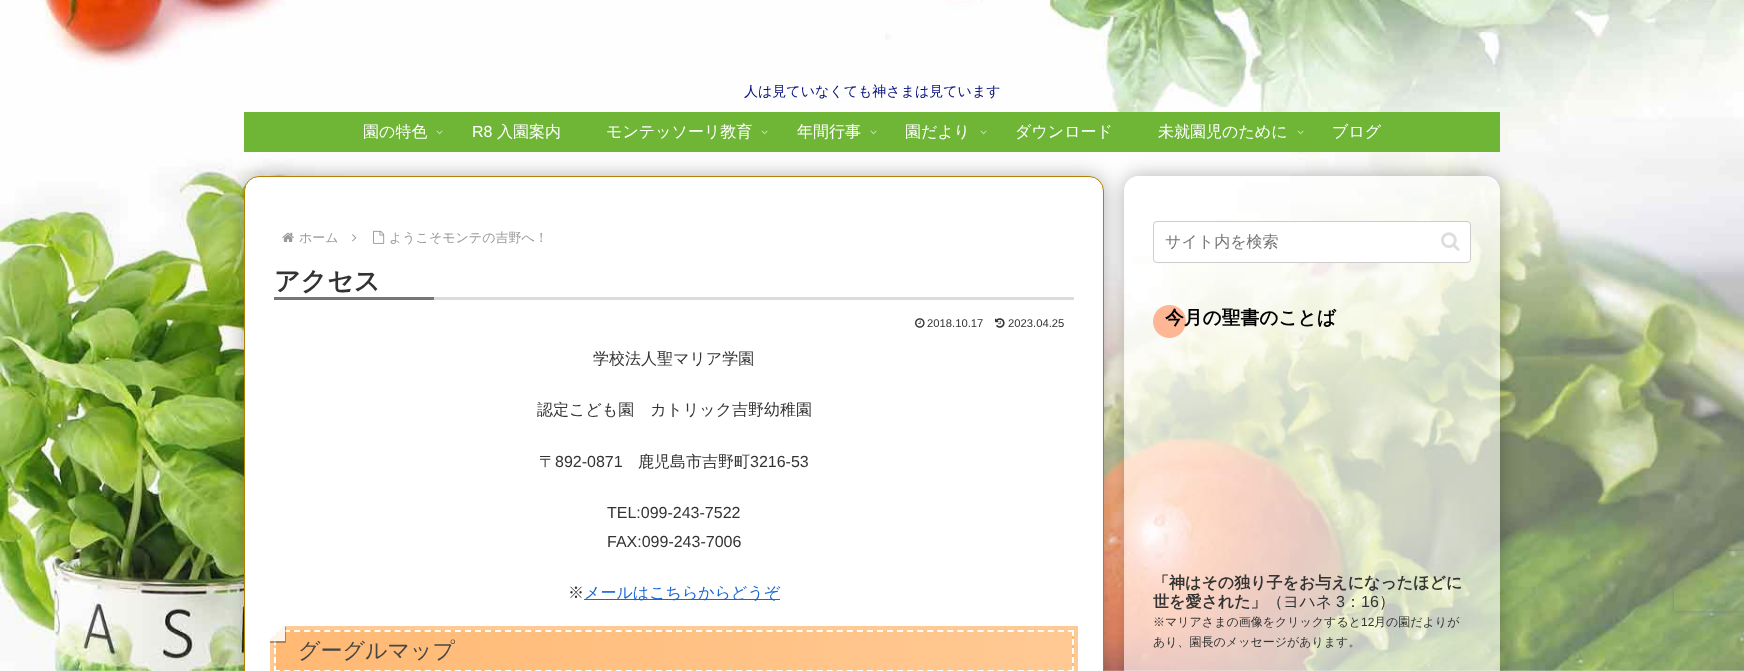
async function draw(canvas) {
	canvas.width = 1744;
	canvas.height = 671;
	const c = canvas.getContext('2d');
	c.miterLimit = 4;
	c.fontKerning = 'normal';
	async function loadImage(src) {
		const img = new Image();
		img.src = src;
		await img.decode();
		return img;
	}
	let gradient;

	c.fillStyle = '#fff';
	c.fillRect(0, 0, 1744, 671);
	c.drawImage(await loadImage('img1.png'), 0, 0, 1744, 671);
	c.font = '500 14px WenQuanYi Zen Hei';
	c.fillStyle = '#020e7c';
	c.fillText('人は見ていなくても神さまは見ています', 744, 96);
	c.fillStyle = '#6fb536';
	c.fillRect(244, 112, 1256, 40);
	c.font = '500 16px WenQuanYi Zen Hei';
	c.fillStyle = '#fff';
	c.fillText('園の特色', 363, 137);
	c.drawImage(await loadImage('img2.png'), 436, 130, 7, 5);
	c.font = '16px Liberation Sans';
	c.fillText('R8', 472, 137);
	c.font = '500 16px WenQuanYi Zen Hei';
	c.fillText('入園案内', 497, 137);
	c.fillText('モンテッソーリ教育', 606, 137);
	c.drawImage(await loadImage('img2.png'), 761, 130, 7, 5);
	c.fillText('年間行事', 797, 137);
	c.drawImage(await loadImage('img2.png'), 870, 130, 7, 5);
	c.fillText('園だより', 905, 137);
	c.drawImage(await loadImage('img2.png'), 980, 130, 7, 5);
	c.fillText('ダウンロード', 1015, 137);
	c.fillText('未就園児のために', 1158, 137);
	c.drawImage(await loadImage('img2.png'), 1297, 130, 7, 5);
	c.fillText('ブログ', 1332, 137);
	c.save();
	c.beginPath();
	c.moveTo(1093, 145);
	c.lineTo(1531, 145);
	c.lineTo(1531, 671);
	c.lineTo(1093, 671);
	c.closePath();
	c.moveTo(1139, 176);
	c.lineTo(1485, 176);
	c.bezierCurveTo(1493.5, 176, 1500, 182.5, 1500, 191);
	c.lineTo(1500, 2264);
	c.bezierCurveTo(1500, 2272.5, 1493.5, 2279, 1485, 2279);
	c.lineTo(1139, 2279);
	c.bezierCurveTo(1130.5, 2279, 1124, 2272.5, 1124, 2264);
	c.lineTo(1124, 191);
	c.bezierCurveTo(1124, 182.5, 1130.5, 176, 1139, 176);
	c.closePath();
	c.clip('evenodd');
	c.fillStyle = '#0000004d';
	c.filter = 'blur(10px)';
	c.beginPath();
	c.roundRect(1124, 176, 376, 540, 15);
	c.fill();
	c.filter = 'none';
	c.restore();
	c.fillStyle = '#ffffff99';
	c.beginPath();
	c.roundRect(1124, 176, 376, 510, 15);
	c.fill();
	c.fillStyle = '#0000004d';
	c.filter = 'blur(10px)';
	c.beginPath();
	c.roundRect(244, 176, 860, 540, 15);
	c.fill();
	c.filter = 'none';
	c.fillStyle = '#fff';
	c.beginPath();
	c.roundRect(244.5, 176.5, 859, 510, 14.5);
	c.fill();
	c.strokeStyle = '#b57e00';
	c.stroke();
	c.drawImage(await loadImage('img3.png'), 282, 232, 12, 10);
	c.font = '500 13px WenQuanYi Zen Hei';
	c.fillStyle = '#999';
	c.fillText('ホーム', 299, 242);
	c.drawImage(await loadImage('img4.png'), 352, 234, 5, 8);
	c.drawImage(await loadImage('img5.png'), 373, 230, 12, 14);
	c.fillText('ようこそモンテの吉野へ！', 389, 242);
	c.fillStyle = '#dcdcdc';
	c.fillRect(434, 297, 640, 3);
	c.font = 'bold 26px WenQuanYi Zen Hei';
	c.fillStyle = '#333';
	c.fillText('アクセス', 274, 290);
	c.fillStyle = '#777';
	c.fillRect(274, 297, 160, 3);
	c.drawImage(await loadImage('img6.png'), 915, 318, 10, 10);
	c.font = '11.25px Liberation Sans';
	c.fillStyle = '#333';
	c.fillText('2018.10.17', 927, 327);
	c.drawImage(await loadImage('img7.png'), 995, 318, 10, 10);
	c.fillText('2023.04.25', 1008, 327);
	c.font = '500 16px WenQuanYi Zen Hei';
	for (const [text, x, y] of [
		['学校法人聖マリア学園', 593, 364],
		['認定こども園　カトリック吉野幼稚園', 537, 415],
		['〒', 539, 467],
	]) {
		c.fillText(text, x, y);
	}
	c.font = '16px Liberation Sans';
	c.fillText('892-0871', 555, 467);
	c.font = '500 16px WenQuanYi Zen Hei';
	c.fillText('鹿児島市吉野町', 638, 467);
	c.font = '16px Liberation Sans';
	for (const [text, x, y] of [
		['3216-53', 750, 467],
		['TEL:099-243-7522', 607, 518],
		['FAX:099-243-7006', 607, 547],
	]) {
		c.fillText(text, x, y);
	}
	c.font = '500 16px WenQuanYi Zen Hei';
	c.fillText('※', 568, 598);
	c.fillStyle = '#1967d2';
	c.fillRect(584, 599, 196, 1);
	c.fillText('メールはこちらからどうぞ', 584, 598);
	c.strokeStyle = '#ffc994';
	c.lineWidth = 4;
	c.strokeRect(272, 628, 804, 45);
	gradient = c.createLinearGradient(-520, 651, 276, 651);
	gradient.addColorStop(0, '#ffb973');
	gradient.addColorStop(1, '#ffc994');
	c.fillStyle = gradient;
	c.fillRect(274, 645, 2, 26);
	gradient = c.createLinearGradient(276, 651, 1072, 651);
	gradient.addColorStop(0, '#ffb973');
	gradient.addColorStop(1, '#ffc994');
	c.fillStyle = gradient;
	c.fillRect(276, 630, 796, 41);
	gradient = c.createLinearGradient(1072, 651, 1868, 651);
	gradient.addColorStop(0, '#ffb973');
	gradient.addColorStop(1, '#ffc994');
	c.fillStyle = gradient;
	c.fillRect(1072, 630, 2, 41);
	c.beginPath();
	c.moveTo(274, 631);
	c.lineTo(1074, 631);
	c.strokeStyle = '#fff';
	c.lineWidth = 2;
	c.setLineDash([6, 4.05]);
	c.stroke();
	c.beginPath();
	c.moveTo(1073, 630);
	c.lineTo(1073, 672);
	c.setLineDash([6, 3]);
	c.stroke();
	c.beginPath();
	c.moveTo(274, 671);
	c.lineTo(1074, 671);
	c.setLineDash([6, 4.05]);
	c.stroke();
	c.beginPath();
	c.moveTo(275, 630);
	c.lineTo(275, 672);
	c.setLineDash([6, 3]);
	c.stroke();
	c.fillStyle = '#0000004a';
	c.beginPath();
	c.moveTo(270, 641);
	c.lineTo(270, 643);
	c.lineTo(286, 643);
	c.lineTo(286, 627);
	c.lineTo(285, 627);
	c.lineTo(285, 641);
	c.closePath();
	c.fill();
	c.fillStyle = '#fff4ea';
	c.beginPath();
	c.moveTo(285, 641);
	c.lineTo(269, 641);
	c.lineTo(285, 625);
	c.closePath();
	c.fill();
	c.fillStyle = '#fff';
	c.beginPath();
	c.moveTo(269, 641);
	c.lineTo(269, 625);
	c.lineTo(285, 625);
	c.closePath();
	c.fill();
	c.font = '500 22px WenQuanYi Zen Hei';
	c.fillStyle = '#474747';
	c.fillText('グーグルマップ', 298, 658);
	c.fillStyle = '#fff';
	c.beginPath();
	c.roundRect(1153.5, 221.5, 317, 41, 3.5);
	c.fill();
	c.strokeStyle = '#ccc';
	c.lineWidth = 1;
	c.setLineDash([]);
	c.stroke();
	c.font = '500 16px WenQuanYi Zen Hei';
	c.fillStyle = '#757575';
	c.fillText('サイト内を検索', 1165, 247);
	c.drawImage(await loadImage('img8.png'), 1441, 232, 19, 19);
	c.fillStyle = '#ffb694';
	c.beginPath();
	c.arc(1169.5, 321.5, 16.5, 0, 2 * Math.PI);
	c.fill();
	c.font = 'bold 18.75px WenQuanYi Zen Hei';
	c.fillStyle = '#000';
	c.fillText('今月の聖書のことば', 1165, 324);
	c.font = 'bold 16px WenQuanYi Zen Hei';
	c.fillStyle = '#333';
	c.fillText('「神はその独り子をお与えになったほどに', 1153, 588);
	c.fillText('世を愛された」', 1153, 607);
	c.font = '500 16px WenQuanYi Zen Hei';
	c.fillText('（ヨハネ', 1267, 607);
	c.font = '16px Liberation Sans';
	c.fillText('3', 1336, 607);
	c.font = '500 16px WenQuanYi Zen Hei';
	c.fillText('：', 1345, 607);
	c.font = '16px Liberation Sans';
	c.fillText('16', 1361, 607);
	c.font = '500 16px WenQuanYi Zen Hei';
	c.fillText('）', 1379, 607);
	c.font = '500 12px WenQuanYi Zen Hei';
	c.fillText('※マリアさまの画像をクリックすると', 1153, 626);
	c.font = '12px Liberation Sans';
	c.fillText('12', 1361, 626);
	c.font = '500 12px WenQuanYi Zen Hei';
	c.fillText('月の園だよりが', 1374, 626);
	c.fillText('あり、園長のメッセージがあります。', 1153, 646);
	c.save();
	c.beginPath();
	c.moveTo(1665, 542);
	c.lineTo(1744, 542);
	c.lineTo(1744, 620);
	c.lineTo(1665, 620);
	c.closePath();
	c.moveTo(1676, 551);
	c.lineTo(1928, 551);
	c.bezierCurveTo(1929, 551, 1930, 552, 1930, 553);
	c.lineTo(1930, 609);
	c.bezierCurveTo(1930, 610, 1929, 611, 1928, 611);
	c.lineTo(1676, 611);
	c.bezierCurveTo(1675, 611, 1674, 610, 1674, 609);
	c.lineTo(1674, 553);
	c.bezierCurveTo(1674, 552, 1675, 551, 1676, 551);
	c.closePath();
	c.clip('evenodd');
	c.fillStyle = '#808080';
	c.filter = 'blur(2.5px)';
	c.beginPath();
	c.roundRect(1674, 551, 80, 60, 2);
	c.fill();
	c.filter = 'none';
	c.restore();
}

draw(document.querySelector('canvas'));
